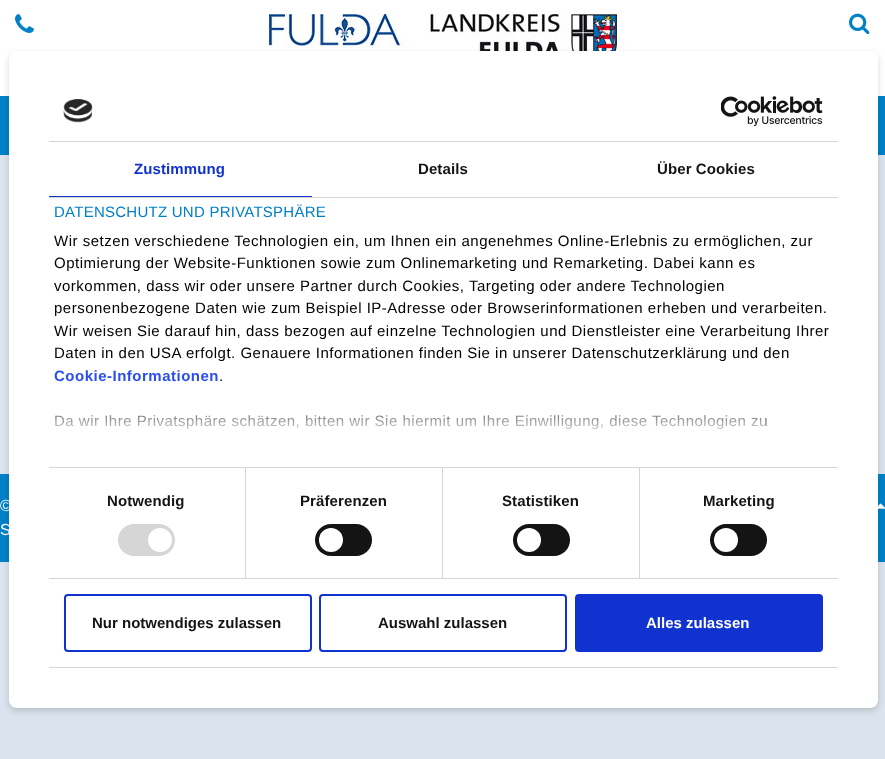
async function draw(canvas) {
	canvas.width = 885;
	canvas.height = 759;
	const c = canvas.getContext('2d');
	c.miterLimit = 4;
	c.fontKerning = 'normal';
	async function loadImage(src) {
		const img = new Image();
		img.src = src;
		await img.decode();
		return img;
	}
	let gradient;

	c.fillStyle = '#dbe4ee';
	c.fillRect(0, 0, 885, 759);
	c.fillStyle = '#fff';
	c.fillRect(0, 0, 885, 96);
	c.drawImage(await loadImage('img1.png'), 15, 14, 19, 19);
	c.drawImage(await loadImage('img2.png'), 269, 14, 348, 37);
	c.drawImage(await loadImage('img3.png'), 849, 13, 21, 22);
	c.fillStyle = '#0081c7';
	c.fillRect(0, 96, 885, 59);
	c.fillRect(0, 474, 885, 88);
	c.font = '16px Liberation Sans';
	c.fillStyle = '#fff';
	c.fillText('©', 0, 511);
	c.fillText('S', 0, 535);
	c.drawImage(await loadImage('img4.png'), 878, 503, 7, 6);
	c.fillStyle = '#00000029';
	c.filter = 'blur(3px)';
	c.beginPath();
	c.roundRect(9, 54, 869, 657, 8);
	c.fill();
	c.filter = 'none';
	c.fillStyle = '#fff';
	c.beginPath();
	c.roundRect(9, 51, 869, 657, 8);
	c.fill();
	c.fillStyle = '#d6d6d6';
	c.fillRect(49, 141, 789, 1);
	c.drawImage(await loadImage('img5.png'), 63, 99, 30, 24);
	c.drawImage(await loadImage('img6.png'), 721, 96, 102, 30);
	c.fillRect(49, 197, 789, 1);
	c.fillStyle = '#1032cf';
	c.fillRect(49, 196, 263, 1);
	c.letterSpacing = '0.1px';
	c.font = 'bold 15px Liberation Sans';
	c.fillText('Zustimmung', 134, 174);
	c.fillStyle = '#141414';
	c.fillText('Details', 418, 174);
	c.fillText('Über Cookies', 657, 174);
	c.fillStyle = '#d6d6d6';
	c.fillRect(49, 467, 789, 1);
	c.letterSpacing = '0.25px';
	c.font = '15px Liberation Sans';
	c.fillStyle = '#0081c7';
	c.fillText('DATENSCHUTZ UND PRIVATSPHÄRE', 54, 217);
	c.letterSpacing = '0.5px';
	c.fillStyle = '#000';
	for (const [text, x, y] of [
		['Wir setzen verschiedene Technologien ein, um Ihnen ein angenehmes Online-Erlebnis zu ermöglichen, zur', 54, 246],
		['Optimierung der Website-Funktionen sowie zum Onlinemarketing und Remarketing. Dabei kann es', 54, 268],
		['vorkommen, dass wir oder unsere Partner durch Cookies, Targeting oder andere Technologien', 54, 291],
		['personenbezogene Daten wie zum Beispiel IP-Adresse oder Browserinformationen erheben und verarbeiten.', 54, 313],
		['Wir weisen Sie darauf hin, dass bezogen auf einzelne Technologien und Dienstleister eine Verarbeitung Ihrer', 54, 336],
		['Daten in den USA erfolgt. Genauere Informationen finden Sie in unserer Datenschutzerklärung und den', 54, 358],
	]) {
		c.fillText(text, x, y);
	}
	c.font = 'bold 15px Liberation Sans';
	c.fillStyle = '#2a4eef';
	c.fillText('Cookie-Informationen', 54, 381);
	c.font = '15px Liberation Sans';
	c.fillStyle = '#000';
	c.fillText('.', 219, 381);
	c.fillText('Da wir Ihre Privatsphäre schätzen, bitten wir Sie hiermit um Ihre Einwilligung, diese Technologien zu', 54, 426);
	gradient = c.createLinearGradient(437, 467, 437, 392);
	gradient.addColorStop(0, '#fff');
	gradient.addColorStop(0.5, '#ffffffcc');
	gradient.addColorStop(1, '#ffffff00');
	c.fillStyle = gradient;
	c.fillRect(54, 415, 712, 15);
	c.fillStyle = '#d6d6d6';
	c.fillRect(49, 578, 789, 1);
	c.fillRect(245, 468, 1, 110);
	c.letterSpacing = '0.1px';
	c.font = 'bold 15px Liberation Sans';
	c.fillStyle = '#141414';
	c.fillText('Notwendig', 107, 506);
	c.fillStyle = '#d6d6d6';
	c.beginPath();
	c.roundRect(118, 524, 57, 32, 16);
	c.fill();
	c.fillStyle = '#fff';
	c.beginPath();
	c.arc(160, 540, 12, 0, 2 * Math.PI);
	c.fill();
	c.fillStyle = '#d6d6d6';
	c.fillRect(442, 468, 1, 110);
	c.fillStyle = '#141414';
	c.fillText('Präferenzen', 300, 506);
	c.beginPath();
	c.roundRect(315, 524, 57, 32, 16);
	c.fill();
	c.fillStyle = '#fff';
	c.beginPath();
	c.arc(331, 540, 12, 0, 2 * Math.PI);
	c.fill();
	c.fillStyle = '#d6d6d6';
	c.fillRect(639, 468, 1, 110);
	c.fillStyle = '#141414';
	c.fillText('Statistiken', 502, 506);
	c.beginPath();
	c.roundRect(513, 524, 57, 32, 16);
	c.fill();
	c.fillStyle = '#fff';
	c.beginPath();
	c.arc(529, 540, 12, 0, 2 * Math.PI);
	c.fill();
	c.fillStyle = '#141414';
	c.fillText('Marketing', 703, 506);
	c.beginPath();
	c.roundRect(710, 524, 57, 32, 16);
	c.fill();
	c.fillStyle = '#fff';
	c.beginPath();
	c.arc(726, 540, 12, 0, 2 * Math.PI);
	c.fill();
	c.fillStyle = '#d6d6d6';
	c.fillRect(49, 667, 789, 1);
	c.beginPath();
	c.roundRect(65, 595, 246, 56, 3);
	c.strokeStyle = '#1032cf';
	c.lineWidth = 2;
	c.stroke();
	c.letterSpacing = '0px';
	c.fillStyle = '#141414';
	c.fillText('Nur notwendiges zulassen', 92, 628);
	c.beginPath();
	c.roundRect(320, 595, 246, 56, 3);
	c.stroke();
	c.fillText('Auswahl zulassen', 378, 628);
	c.fillStyle = '#1032cf';
	c.beginPath();
	c.roundRect(576, 595, 246, 56, 3);
	c.fill();
	c.stroke();
	c.fillStyle = '#fff';
	c.fillText('Alles zulassen', 646, 628);
}

draw(document.querySelector('canvas'));
